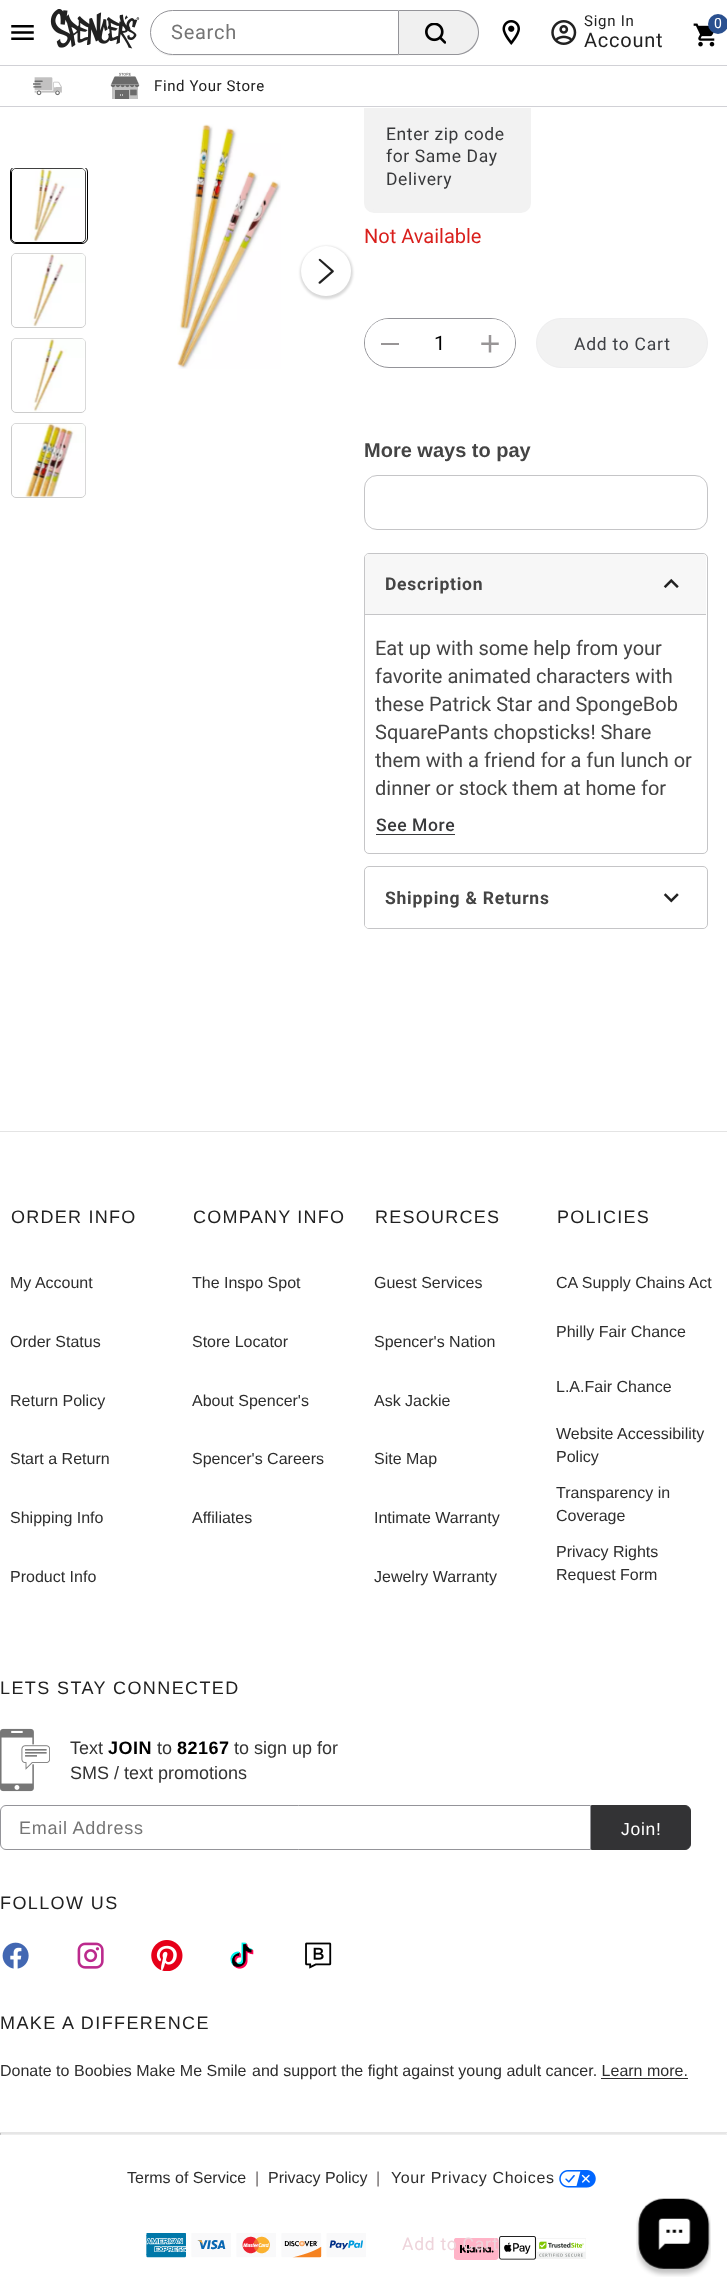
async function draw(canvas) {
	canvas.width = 727;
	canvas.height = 2287;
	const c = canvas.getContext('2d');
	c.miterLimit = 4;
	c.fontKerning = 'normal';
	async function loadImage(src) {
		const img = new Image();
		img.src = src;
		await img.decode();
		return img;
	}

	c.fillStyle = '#fff';
	c.fillRect(0, 0, 727, 2287);
	c.fillStyle = '#f2f2f2';
	c.beginPath();
	c.roundRect(365.5, 1.5, 164, 210, 8.5);
	c.fill();
	c.strokeStyle = '#f2f2f2';
	c.lineWidth = 3;
	c.stroke();
	c.fillStyle = '#fff';
	c.fillRect(364, 0, 167, 108);
	c.fillStyle = '#d1d1d6';
	c.fillRect(0, 65, 727, 1);
	c.drawImage(await loadImage('img1.png'), 11, 25, 23, 15);
	c.drawImage(await loadImage('img2.png'), 50, 9, 90, 40);
	c.fillStyle = '#f2f2f2';
	c.beginPath();
	c.moveTo(150, 33);
	c.lineTo(150, 34);
	c.bezierCurveTo(150, 46, 160, 56, 172, 56);
	c.lineTo(399, 56);
	c.lineTo(399, 11);
	c.lineTo(399, 55);
	c.lineTo(172, 55);
	c.bezierCurveTo(160, 55, 150, 45, 150, 33);
	c.closePath();
	c.fill();
	c.beginPath();
	c.roundRect(150.5, 10.5, 248, 44, [22, 0, 0, 22]);
	c.strokeStyle = '#949499';
	c.lineWidth = 1;
	c.stroke();
	c.letterSpacing = '0.75px';
	c.font = '20px Roboto';
	c.fillStyle = '#757575';
	c.fillText('Search', 171, 39);
	c.fillStyle = '#f0f0f0';
	c.beginPath();
	c.roundRect(399, 10, 80, 45, [0, 22.5, 22.5, 0]);
	c.fill();
	c.drawImage(await loadImage('img3.png'), 425, 23, 21, 21);
	c.fillStyle = '#949499';
	c.beginPath();
	c.moveTo(399, 10);
	c.lineTo(456, 10);
	c.bezierCurveTo(469, 10, 479, 20, 479, 32);
	c.bezierCurveTo(479, 45, 469, 55, 456, 55);
	c.lineTo(399, 55);
	c.closePath();
	c.moveTo(399, 11);
	c.lineTo(456, 11);
	c.bezierCurveTo(468, 11, 478, 21, 478, 32);
	c.bezierCurveTo(478, 44, 468, 54, 456, 54);
	c.lineTo(399, 54);
	c.closePath();
	c.fill('evenodd');
	c.drawImage(await loadImage('img4.png'), 502, 20, 18, 25);
	c.drawImage(await loadImage('img5.png'), 551, 20, 26, 25);
	c.font = '15px Roboto';
	c.fillStyle = '#212121';
	c.fillText('Sign In', 584, 26);
	c.font = '20px Roboto';
	c.fillText('Account', 584, 47);
	c.drawImage(await loadImage('img6.png'), 693, 23, 22, 24);
	c.fillStyle = '#2a508f';
	c.beginPath();
	c.arc(718, 24, 10, 0, 2 * Math.PI);
	c.fill();
	c.letterSpacing = '0px';
	c.font = '14px Roboto';
	c.fillStyle = '#fff';
	c.fillText('0', 714, 28);
	c.fillStyle = '#d1d1d6';
	c.fillRect(0, 106, 727, 1);
	c.drawImage(await loadImage('img7.png'), 33, 77, 29, 19);
	c.drawImage(await loadImage('img8.png'), 110, 72, 30, 27);
	c.letterSpacing = '0.6px';
	c.font = '15px Roboto';
	c.fillStyle = '#212121';
	c.fillText('Find Your Store', 154, 91);
	c.beginPath();
	c.roundRect(11.5, 168.5, 74, 74, 4.5);
	c.strokeStyle = '#000';
	c.stroke();
	c.drawImage(await loadImage('img9.png'), 12, 168, 74, 74);
	c.save();
	c.beginPath();
	c.rect(10, 168, 78, 330);
	c.clip();
	c.beginPath();
	c.roundRect(10.5, 166.5, 77, 77, 5.5);
	c.stroke();
	c.restore();
	c.beginPath();
	c.roundRect(11.5, 253.5, 74, 74, 4.5);
	c.strokeStyle = '#ccc';
	c.stroke();
	c.drawImage(await loadImage('img10.png'), 12, 253, 74, 74);
	c.beginPath();
	c.roundRect(11.5, 338.5, 74, 74, 4.5);
	c.stroke();
	c.drawImage(await loadImage('img11.png'), 12, 338, 74, 74);
	c.beginPath();
	c.roundRect(11.5, 423.5, 74, 74, 4.5);
	c.stroke();
	c.drawImage(await loadImage('img12.png'), 12, 423, 74, 74);
	c.drawImage(await loadImage('img13.png'), 177, 124, 104, 245);
	c.fillStyle = '#00000026';
	c.filter = 'blur(1px)';
	c.beginPath();
	c.roundRect(300, 246, 53, 53, 26.5);
	c.fill();
	c.filter = 'none';
	c.fillStyle = '#fff';
	c.beginPath();
	c.arc(326, 271, 25, 0, 2 * Math.PI);
	c.fill();
	c.drawImage(await loadImage('img14.png'), 318, 258, 16, 26);
	c.font = '17.5px Roboto';
	c.fillStyle = '#38393b';
	for (const [text, x, y] of [
		['Enter zip code', 386, 140],
		['for Same Day', 386, 162],
		['Delivery', 386, 185],
	]) {
		c.fillText(text, x, y);
	}
	c.letterSpacing = '0px';
	c.font = '20px Roboto';
	c.fillStyle = '#d91f1c';
	c.fillText('Not Available', 364, 243);
	c.beginPath();
	c.roundRect(364.5, 318.5, 151, 49, 24.5);
	c.strokeStyle = '#949499';
	c.stroke();
	c.save();
	c.beginPath();
	c.roundRect(365, 319, 150, 47, 23.5);
	c.clip();
	c.fillStyle = '#fff';
	c.beginPath();
	c.roundRect(365, 319, 50, 50, 4);
	c.fill();
	c.restore();
	c.fillStyle = '#989596';
	c.fillRect(381, 343, 18, 2);
	c.fillStyle = '#000';
	c.fillText('1', 434, 350);
	c.save();
	c.beginPath();
	c.roundRect(365, 319, 150, 47, 23.5);
	c.clip();
	c.fillStyle = '#fff';
	c.beginPath();
	c.roundRect(465, 319, 50, 50, 4);
	c.fill();
	c.restore();
	c.drawImage(await loadImage('img15.png'), 481, 335, 18, 18);
	c.fillStyle = '#f2f2f2';
	c.beginPath();
	c.roundRect(536.5, 318.5, 171, 49, 24.5);
	c.fill();
	c.strokeStyle = '#eeeeef';
	c.stroke();
	c.letterSpacing = '0.75px';
	c.font = '17.5px Roboto';
	c.fillStyle = '#3e4045';
	c.fillText('Add to Cart', 574, 350);
	c.letterSpacing = '0px';
	c.font = 'bold 20px Liberation Sans';
	c.fillStyle = '#444';
	c.fillText('More ways to pay', 364, 457);
	c.beginPath();
	c.roundRect(364.5, 475.5, 343, 54, 12.5);
	c.strokeStyle = '#c5c5c7';
	c.stroke();
	c.beginPath();
	c.roundRect(364.5, 553.5, 343, 300, 4.5);
	c.stroke();
	c.fillStyle = '#f7f7f7';
	c.beginPath();
	c.roundRect(365, 554, 341, 61, [4, 4, 0, 0]);
	c.fill();
	c.fillStyle = '#c5c5c7';
	c.fillRect(365, 614, 341, 1);
	c.letterSpacing = '0.75px';
	c.font = 'bold 17.5px Roboto';
	c.fillStyle = '#444';
	c.fillText('Description', 385, 590);
	c.drawImage(await loadImage('img16.png'), 663, 578, 16, 10);
	c.letterSpacing = '0px';
	c.font = '20px Roboto';
	for (const [text, x, y] of [
		['Eat up with some help from your', 375, 655],
		['favorite animated characters with', 375, 683],
		['these Patrick Star and SpongeBob', 375, 711],
		['SquarePants chopsticks! Share', 375, 739],
		['them with a friend for a fun lunch or', 375, 767],
	]) {
		c.fillText(text, x, y);
	}
	c.save();
	c.beginPath();
	c.rect(365, 615, 341, 180);
	c.clip();
	c.fillText('dinner or stock them at home for', 375, 795);
	c.restore();
	c.letterSpacing = '0.6px';
	c.font = '500 17.5px Roboto';
	c.fillStyle = '#38393b';
	c.fillText('See More', 376, 831);
	c.fillRect(376, 834, 79, 1);
	c.beginPath();
	c.roundRect(364.5, 866.5, 343, 62, 4.5);
	c.stroke();
	c.fillStyle = '#fff';
	c.beginPath();
	c.roundRect(365, 868, 341, 60, 4);
	c.fill();
	c.letterSpacing = '0.75px';
	c.font = 'bold 17.5px Roboto';
	c.fillStyle = '#444';
	c.fillText('Shipping & Returns', 385, 904);
	c.drawImage(await loadImage('img17.png'), 663, 893, 16, 10);
	c.drawImage(await loadImage('img26.png'), 454, 2238, 45, 22);
	c.font = '17.5px Roboto';
	c.fillStyle = '#eed4db';
	c.fillText('Add to Cart', 402, 2250);
	c.fillStyle = '#e4e4e4';
	c.fillRect(0, 1131, 727, 1);
	c.letterSpacing = '1.25px';
	c.font = '18px Liberation Sans';
	c.fillStyle = '#212121';
	c.fillText('ORDER INFO', 11, 1223);
	c.letterSpacing = '0px';
	c.font = '16px Liberation Sans';
	c.fillStyle = '#2d2d2d';
	for (const [text, x, y] of [
		['My Account', 10, 1288],
		['Order Status', 10, 1347],
		['Return Policy', 10, 1406],
		['Start a Return', 10, 1464],
		['Shipping Info', 10, 1523],
		['Product Info', 10, 1582],
	]) {
		c.fillText(text, x, y);
	}
	c.letterSpacing = '1.25px';
	c.font = '18px Liberation Sans';
	c.fillStyle = '#212121';
	c.fillText('COMPANY INFO', 193, 1223);
	c.letterSpacing = '0px';
	c.font = '16px Liberation Sans';
	c.fillStyle = '#2d2d2d';
	for (const [text, x, y] of [
		['The Inspo Spot', 192, 1288],
		['Store Locator', 192, 1347],
		['About Spencer\'s', 192, 1406],
		['Spencer\'s Careers', 192, 1464],
		['Affiliates', 192, 1523],
	]) {
		c.fillText(text, x, y);
	}
	c.letterSpacing = '1.25px';
	c.font = '18px Liberation Sans';
	c.fillStyle = '#212121';
	c.fillText('RESOURCES', 375, 1223);
	c.letterSpacing = '0px';
	c.font = '16px Liberation Sans';
	c.fillStyle = '#2d2d2d';
	for (const [text, x, y] of [
		['Guest Services', 374, 1288],
		['Spencer\'s Nation', 374, 1347],
		['Ask Jackie', 374, 1406],
		['Site Map', 374, 1464],
		['Intimate Warranty', 374, 1523],
		['Jewelry Warranty', 374, 1582],
	]) {
		c.fillText(text, x, y);
	}
	c.letterSpacing = '1.25px';
	c.font = '18px Liberation Sans';
	c.fillStyle = '#212121';
	c.fillText('POLICIES', 557, 1223);
	c.letterSpacing = '0px';
	c.font = '16px Liberation Sans';
	c.fillStyle = '#2d2d2d';
	for (const [text, x, y] of [
		['CA Supply Chains Act', 556, 1288],
		['Philly Fair Chance', 556, 1337],
		['L.A.Fair Chance', 556, 1392],
		['Website Accessibility', 556, 1439],
		['Policy', 556, 1462],
		['Transparency in', 556, 1498],
		['Coverage', 556, 1521],
		['Privacy Rights', 556, 1557],
		['Request Form', 556, 1580],
	]) {
		c.fillText(text, x, y);
	}
	c.letterSpacing = '1.4px';
	c.font = '18px Liberation Sans';
	c.fillStyle = '#212121';
	c.fillText('LETS STAY CONNECTED', 0, 1694);
	c.drawImage(await loadImage('img18.png'), 0, 1728, 50, 64);
	c.letterSpacing = '0px';
	c.fillStyle = '#333';
	c.fillText('Text', 70, 1754);
	c.letterSpacing = '0.5px';
	c.font = 'bold 18px Liberation Sans';
	c.fillStyle = '#000';
	c.fillText('JOIN', 108, 1754);
	c.letterSpacing = '0px';
	c.font = '18px Liberation Sans';
	c.fillStyle = '#333';
	c.fillText('to', 157, 1754);
	c.letterSpacing = '0.5px';
	c.font = 'bold 18px Liberation Sans';
	c.fillStyle = '#000';
	c.fillText('82167', 177, 1754);
	c.letterSpacing = '0px';
	c.font = '18px Liberation Sans';
	c.fillStyle = '#333';
	c.fillText('to sign up for', 234, 1754);
	c.fillText('SMS / text promotions', 70, 1779);
	c.beginPath();
	c.roundRect(0.5, 1805.5, 590, 44, [5.5, 0, 0, 5.5]);
	c.strokeStyle = '#949499';
	c.stroke();
	c.letterSpacing = '0.75px';
	c.fillStyle = '#757575';
	c.fillText('Email Address', 19, 1834);
	c.fillStyle = '#333335';
	c.beginPath();
	c.roundRect(591.5, 1805.5, 99, 44, [0, 5.5, 5.5, 0]);
	c.fill();
	c.strokeStyle = '#333335';
	c.stroke();
	c.font = '17.5px Liberation Sans';
	c.fillStyle = '#fff';
	c.fillText('Join!', 621, 1835);
	c.letterSpacing = '1.4px';
	c.font = '18px Liberation Sans';
	c.fillStyle = '#212121';
	c.fillText('FOLLOW US', 0, 1909);
	c.drawImage(await loadImage('img19.png'), 2, 1942, 27, 27);
	c.drawImage(await loadImage('img20.png'), 77, 1942, 27, 27);
	c.drawImage(await loadImage('img21.png'), 151, 1940, 32, 31);
	c.drawImage(await loadImage('img22.png'), 230, 1942, 24, 27);
	c.drawImage(await loadImage('img23.png'), 305, 1942, 27, 27);
	c.fillText('MAKE A DIFFERENCE', 0, 2029);
	c.letterSpacing = '0px';
	c.font = '16px Liberation Sans';
	c.fillStyle = '#2d2d2d';
	for (const [text, x, y] of [
		['Donate to', 0, 2076],
		['Boobies Make Me Smile', 74, 2076],
		['and support the fight against young adult cancer. Learn more.', 252, 2076],
	]) {
		c.fillText(text, x, y);
	}
	c.fillRect(601, 2078, 87, 1);
	c.fillStyle = '#e6e6e6';
	c.beginPath();
	c.moveTo(0, 2132);
	c.lineTo(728, 2132);
	c.lineTo(726, 2134);
	c.lineTo(1, 2134);
	c.closePath();
	c.fill();
	c.fillStyle = '#eee';
	c.beginPath();
	c.moveTo(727.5, 2132.5);
	c.lineTo(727.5, 2135);
	c.lineTo(726, 2134);
	c.closePath();
	c.fill();
	c.fillRect(0, 2134, 727, 1);
	c.fillStyle = '#9f9f9f';
	c.beginPath();
	c.moveTo(0, 2135);
	c.lineTo(0, 2132.5);
	c.lineTo(1, 2134);
	c.closePath();
	c.fill();
	c.fillStyle = '#2d2d2d';
	c.fillText('Terms of Service', 127, 2183);
	c.fillStyle = '#6d6767';
	c.fillText('|', 255, 2183);
	c.fillStyle = '#2d2d2d';
	c.fillText('Privacy Policy', 268, 2183);
	c.fillStyle = '#6d6767';
	c.fillText('|', 376, 2183);
	c.letterSpacing = '0.6px';
	c.fillStyle = '#2d2d2d';
	c.fillText('Your Privacy Choices', 391, 2183);
	c.drawImage(await loadImage('img24.png'), 559, 2170, 37, 18);
	c.drawImage(await loadImage('img25.png'), 146, 2233, 220, 25);
	c.drawImage(await loadImage('img27.png'), 499, 2236, 37, 24);
	c.drawImage(await loadImage('img28.png'), 536, 2238, 50, 21);
	c.drawImage(await loadImage('img29.png'), 636, 2198, 75, 79);
}

draw(document.querySelector('canvas'));
